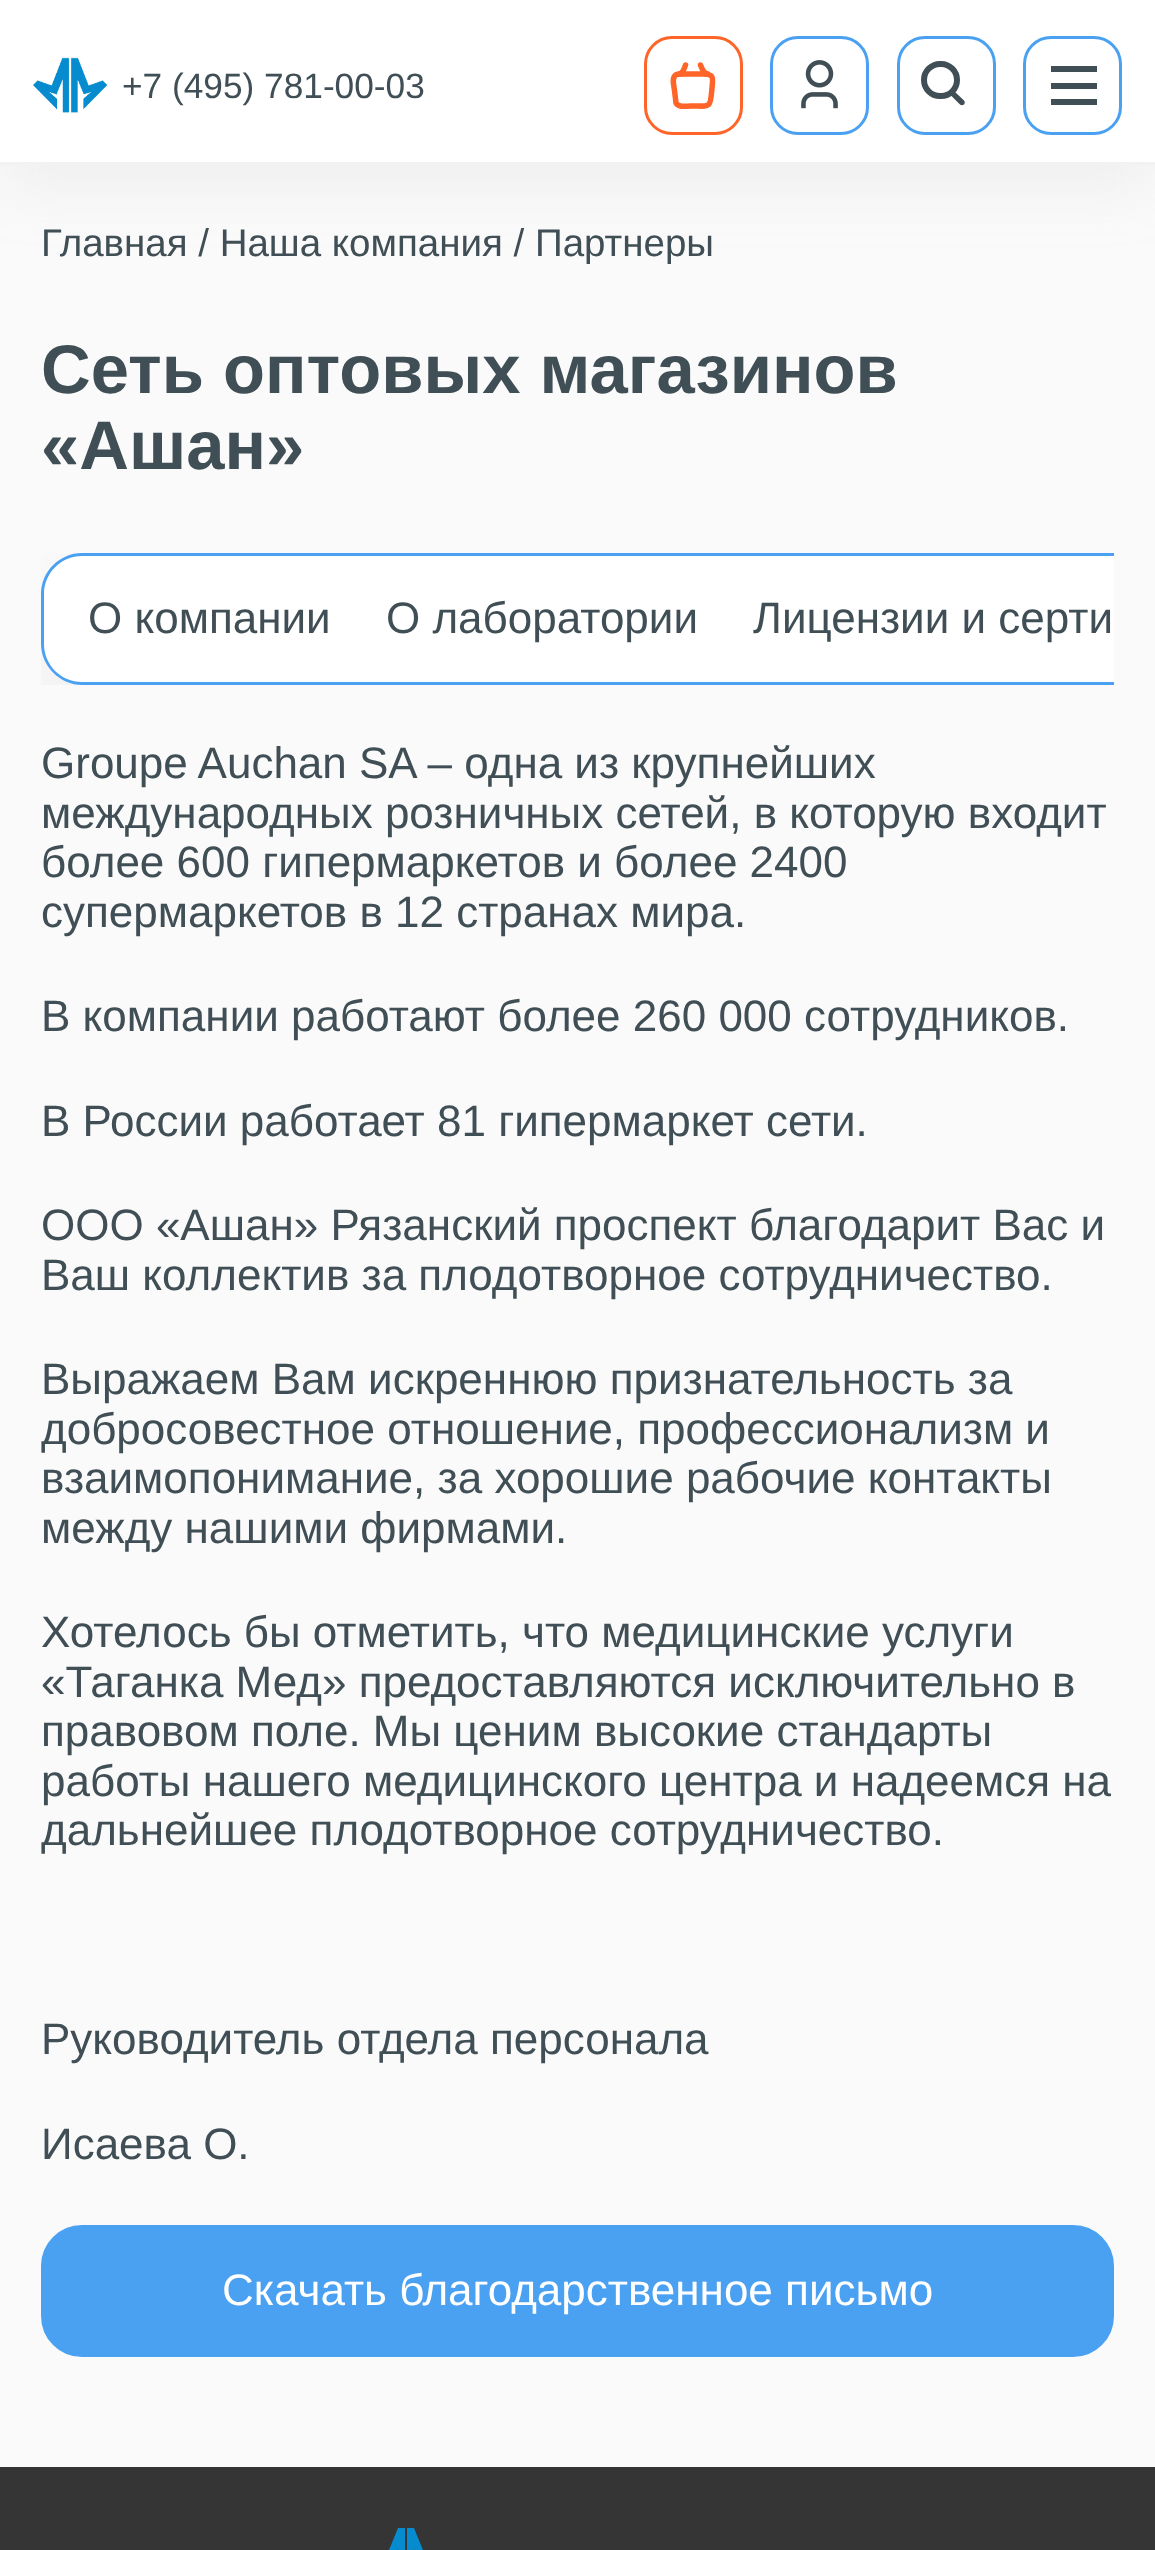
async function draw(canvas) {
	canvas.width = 1155;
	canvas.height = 2550;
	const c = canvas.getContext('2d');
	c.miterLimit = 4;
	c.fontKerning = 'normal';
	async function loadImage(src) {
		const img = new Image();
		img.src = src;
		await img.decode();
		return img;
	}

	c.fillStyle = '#fafafa';
	c.fillRect(0, 0, 1155, 2550);
	c.fillStyle = '#9f9f9f1f';
	c.filter = 'blur(31.5px)';
	c.beginPath();
	c.rect(0, 22, 1155, 165);
	c.fill();
	c.filter = 'none';
	c.fillStyle = '#fff';
	c.fillRect(0, 0, 1155, 162);
	c.fillStyle = '#f2f2f2';
	c.fillRect(0, 162, 1155, 3);
	c.drawImage(await loadImage('img1.png'), 33, 57, 75, 56);
	c.font = '35.25px Liberation Sans';
	c.fillStyle = '#404e55';
	c.fillText('+7 (495) 781-00-03', 122, 98);
	c.beginPath();
	c.roundRect(645.5, 37.5, 96, 96, 26.5);
	c.strokeStyle = '#ff6428';
	c.lineWidth = 3;
	c.stroke();
	c.beginPath();
	c.moveTo(684, 74);
	c.lineTo(702, 74);
	c.bezierCurveTo(714.5, 74, 713, 77.5, 712, 88);
	c.bezierCurveTo(710, 109, 711.5, 106, 690.5, 106);
	c.bezierCurveTo(686.5, 106, 678.5, 108, 676, 103);
	c.lineTo(674.5, 90.5);
	c.bezierCurveTo(674, 86, 671, 77, 676.5, 74.5);
	c.moveTo(684, 74);
	c.lineTo(676.5, 74.5);
	c.moveTo(684, 74);
	c.lineTo(676.5, 74.5);
	c.moveTo(700.5, 65);
	c.bezierCurveTo(701.5, 67.5, 703, 73.5, 708, 74);
	c.moveTo(685.5, 65);
	c.bezierCurveTo(684.5, 67.5, 683.5, 74, 678, 74);
	c.lineWidth = 5.5;
	c.lineCap = 'round';
	c.lineJoin = 'round';
	c.stroke();
	c.beginPath();
	c.roundRect(771.5, 37.5, 96, 96, 26.5);
	c.strokeStyle = '#4aa0f1';
	c.lineWidth = 3;
	c.lineJoin = 'miter';
	c.stroke();
	c.drawImage(await loadImage('img2.png'), 801, 60, 37, 49);
	c.beginPath();
	c.roundRect(898.5, 37.5, 96, 96, 26.5);
	c.stroke();
	c.beginPath();
	c.roundRect(924, 64, 33, 32, 16);
	c.strokeStyle = '#404e55';
	c.lineWidth = 6;
	c.stroke();
	c.beginPath();
	c.moveTo(950, 91);
	c.bezierCurveTo(951.5, 89.5, 953, 89.5, 954, 91);
	c.lineTo(964, 100.5);
	c.bezierCurveTo(965, 101.5, 965, 103.5, 964, 104.5);
	c.bezierCurveTo(962.5, 105.5, 961, 105.5, 960, 104.5);
	c.lineTo(950, 94.5);
	c.bezierCurveTo(949, 93.5, 949, 92, 950, 91);
	c.closePath();
	c.fill();
	c.beginPath();
	c.roundRect(1024.5, 37.5, 96, 96, 26.5);
	c.strokeStyle = '#4aa0f1';
	c.lineWidth = 3;
	c.stroke();
	for (const [x, y, w, h, color] of [
		[1051, 66, 46, 6, '#404e55'],
		[1051, 83, 46, 6, '#404e55'],
		[1051, 99, 46, 6, '#404e55'],
	]) {
		c.fillStyle = color;
		c.fillRect(x, y, w, h);
	}
	c.font = '38.5px Liberation Sans';
	c.fillText('Главная / Наша компания / Партнеры', 41, 256);
	c.font = 'bold 68.75px Liberation Sans';
	c.fillText('Сеть оптовых магазинов', 41, 393);
	c.fillText('«Ашан»', 41, 469);
	c.save();
	c.beginPath();
	c.rect(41, 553, 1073, 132);
	c.clip();
	c.fillStyle = '#9f9f9f1f';
	c.filter = 'blur(31.5px)';
	c.beginPath();
	c.roundRect(41, 575, 1073, 132, 41);
	c.fill();
	c.filter = 'none';
	c.restore();
	c.fillStyle = '#fff';
	c.beginPath();
	c.roundRect(41, 553, 317, 132, [41, 0, 0, 41]);
	c.fill();
	c.fillStyle = '#4aa0f1';
	c.beginPath();
	c.moveTo(82, 553);
	c.lineTo(358, 553);
	c.lineTo(358, 685);
	c.lineTo(82, 685);
	c.bezierCurveTo(60, 685, 41, 666, 41, 644);
	c.lineTo(41, 594);
	c.bezierCurveTo(41, 571, 60, 553, 82, 553);
	c.closePath();
	c.moveTo(82, 556);
	c.lineTo(358, 556);
	c.lineTo(358, 682);
	c.lineTo(82, 682);
	c.bezierCurveTo(61, 682, 44, 665, 44, 644);
	c.lineTo(44, 594);
	c.bezierCurveTo(44, 573, 61, 556, 82, 556);
	c.closePath();
	c.fill('evenodd');
	c.font = '44px Liberation Sans';
	c.fillStyle = '#404e55';
	c.fillText('О компании', 88, 633);
	for (const [x, y, w, h, color] of [
		[358, 556, 756, 126, '#fff'],
		[358, 553, 756, 3, '#4aa0f1'],
		[358, 682, 756, 3, '#4aa0f1'],
	]) {
		c.fillStyle = color;
		c.fillRect(x, y, w, h);
	}
	c.fillStyle = '#404e55';
	for (const [text, x, y] of [
		['О лаборатории', 386, 633],
		['Лицензии и серти', 753, 633],
		['Groupe Auchan SA – одна из крупнейших', 41, 778],
		['международных розничных сетей, в которую входит', 41, 828],
		['более 600 гипермаркетов и более 2400', 41, 877],
		['супермаркетов в 12 странах мира.', 41, 927],
		['В компании работают более 260 000 сотрудников.', 41, 1031],
		['В России работает 81 гипермаркет сети.', 41, 1136],
		['ООО «Ашан» Рязанский проспект благодарит Вас и', 41, 1240],
		['Ваш коллектив за плодотворное сотрудничество.', 41, 1290],
		['Выражаем Вам искреннюю признательность за', 41, 1394],
		['добросовестное отношение, профессионализм и', 41, 1444],
		['взаимопонимание, за хорошие рабочие контакты', 41, 1493],
		['между нашими фирмами.', 41, 1543],
		['Хотелось бы отметить, что медицинские услуги', 41, 1647],
		['«Таганка Мед» предоставляются исключительно в', 41, 1697],
		['правовом поле. Мы ценим высокие стандарты', 41, 1746],
		['работы нашего медицинского центра и надеемся на', 41, 1796],
		['дальнейшее плодотворное сотрудничество.', 41, 1845],
		['Руководитель отдела персонала', 41, 2054],
		['Исаева О.', 41, 2159],
	]) {
		c.fillText(text, x, y);
	}
	c.fillStyle = '#4aa0f1';
	c.beginPath();
	c.roundRect(42.5, 2226.5, 1070, 129, 39.5);
	c.fill();
	c.stroke();
	c.fillStyle = '#fff';
	c.fillText('Скачать благодарственное письмо', 222, 2305);
	c.fillStyle = '#353535';
	c.fillRect(0, 2467, 1155, 83);
	c.fillStyle = '#068cce';
	c.beginPath();
	c.moveTo(387, 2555);
	c.lineTo(373, 2550);
	c.lineTo(368, 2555);
	c.lineTo(393, 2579);
	c.lineTo(393, 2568);
	c.lineTo(385, 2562);
	c.lineTo(392, 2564);
	c.lineTo(398, 2549);
	c.lineTo(398, 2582);
	c.lineTo(405, 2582);
	c.lineTo(405, 2528);
	c.lineTo(398, 2528);
	c.closePath();
	c.moveTo(425, 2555);
	c.lineTo(439, 2550);
	c.lineTo(443, 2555);
	c.lineTo(419, 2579);
	c.lineTo(419, 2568);
	c.lineTo(427, 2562);
	c.lineTo(420, 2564);
	c.lineTo(414, 2549);
	c.lineTo(414, 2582);
	c.lineTo(407, 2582);
	c.lineTo(407, 2528);
	c.lineTo(414, 2528);
	c.closePath();
	c.fill();
}

draw(document.querySelector('canvas'));
